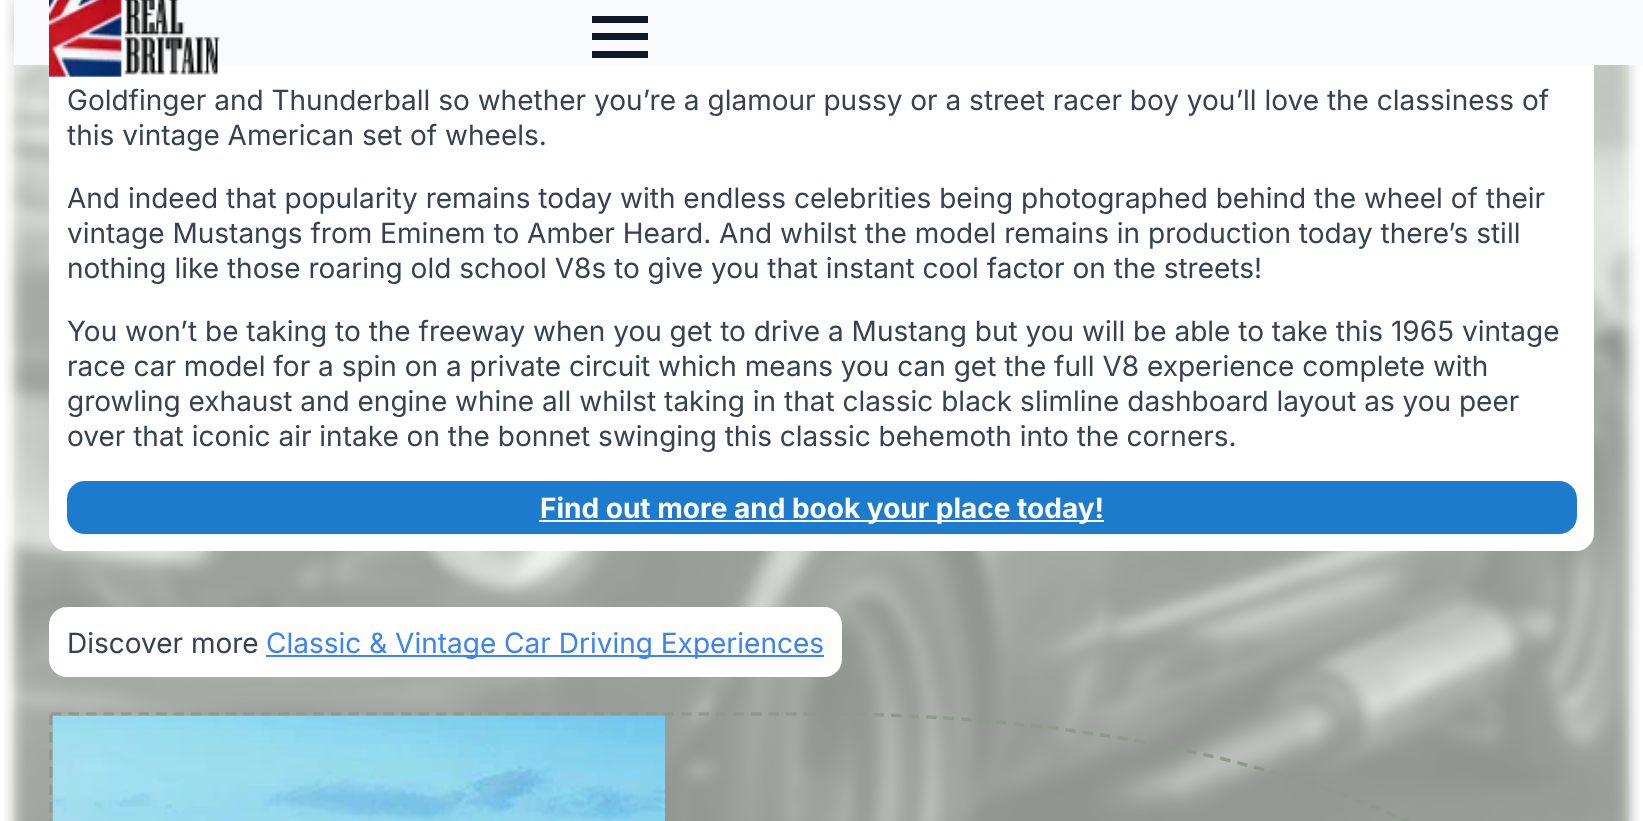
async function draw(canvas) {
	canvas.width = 1643;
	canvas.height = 821;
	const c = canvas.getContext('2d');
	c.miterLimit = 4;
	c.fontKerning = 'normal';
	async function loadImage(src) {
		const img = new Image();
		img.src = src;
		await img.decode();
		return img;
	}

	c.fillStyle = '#fff';
	c.fillRect(0, 0, 1643, 821);
	c.fillStyle = '#f2f9ef';
	c.fillRect(14, 65, 1615, 756);
	c.drawImage(await loadImage('img2.png'), 4, 0, 1636, 821);
	c.fillStyle = '#fff';
	c.beginPath();
	c.roundRect(49, -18, 1545, 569, 18);
	c.fill();
	c.fillStyle = '#f9fafb';
	c.fillRect(14, 0, 1629, 65);
	c.drawImage(await loadImage('img1.png'), 49, 0, 171, 77);
	for (const [x, y, w, h, color] of [
		[592, 33, 56, 7, '#111827'],
		[592, 16, 56, 7, '#111827'],
		[592, 51, 56, 7, '#111827'],
	]) {
		c.fillStyle = color;
		c.fillRect(x, y, w, h);
	}
	c.font = '28px Inter';
	c.fillStyle = '#374151';
	for (const [text, x, y] of [
		['Goldfinger and Thunderball so whether you’re a glamour pussy or a street racer boy you’ll love the classiness of', 67, 110],
		['this vintage American set of wheels.', 67, 145],
		['And indeed that popularity remains today with endless celebrities being photographed behind the wheel of their', 67, 208],
		['vintage Mustangs from Eminem to Amber Heard. And whilst the model remains in production today there’s still', 67, 243],
		['nothing like those roaring old school V8s to give you that instant cool factor on the streets!', 67, 278],
		['You won’t be taking to the freeway when you get to drive a Mustang but you will be able to take this 1965 vintage', 67, 341],
		['race car model for a spin on a private circuit which means you can get the full V8 experience complete with', 67, 376],
		['growling exhaust and engine whine all whilst taking in that classic black slimline dashboard layout as you peer', 67, 411],
		['over that iconic air intake on the bonnet swinging this classic behemoth into the corners.', 67, 446],
	]) {
		c.fillText(text, x, y);
	}
	c.fillStyle = '#1d7bce';
	c.beginPath();
	c.roundRect(67, 481, 1510, 53, 18);
	c.fill();
	c.fillStyle = '#fff';
	c.fillRect(539, 520, 565, 2);
	c.font = 'bold 28px Inter';
	c.fillText('Find out more and book your place today!', 540, 518);
	c.beginPath();
	c.roundRect(49, 607, 793, 70, 18);
	c.fill();
	c.font = '28px Inter';
	c.fillStyle = '#374151';
	c.fillText('Discover more', 67, 653);
	c.fillStyle = '#3b82f6';
	c.fillRect(266, 655, 558, 2);
	c.fillText('Classic & Vintage Car Driving Experiences', 266, 653);
	c.beginPath();
	c.moveTo(51, 714);
	c.lineTo(821.5, 714);
	c.bezierCurveTo(1247.5, 714, 1592.5, 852, 1592.5, 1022);
	c.bezierCurveTo(1592.5, 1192, 1247.5, 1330, 821.5, 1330);
	c.lineTo(51, 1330);
	c.closePath();
	c.strokeStyle = '#8e9a8b';
	c.lineWidth = 3.5;
	c.setLineDash([10.5, 7]);
	c.stroke();
	c.drawImage(await loadImage('img3.png'), 52, 715, 613, 106);
}

draw(document.querySelector('canvas'));
